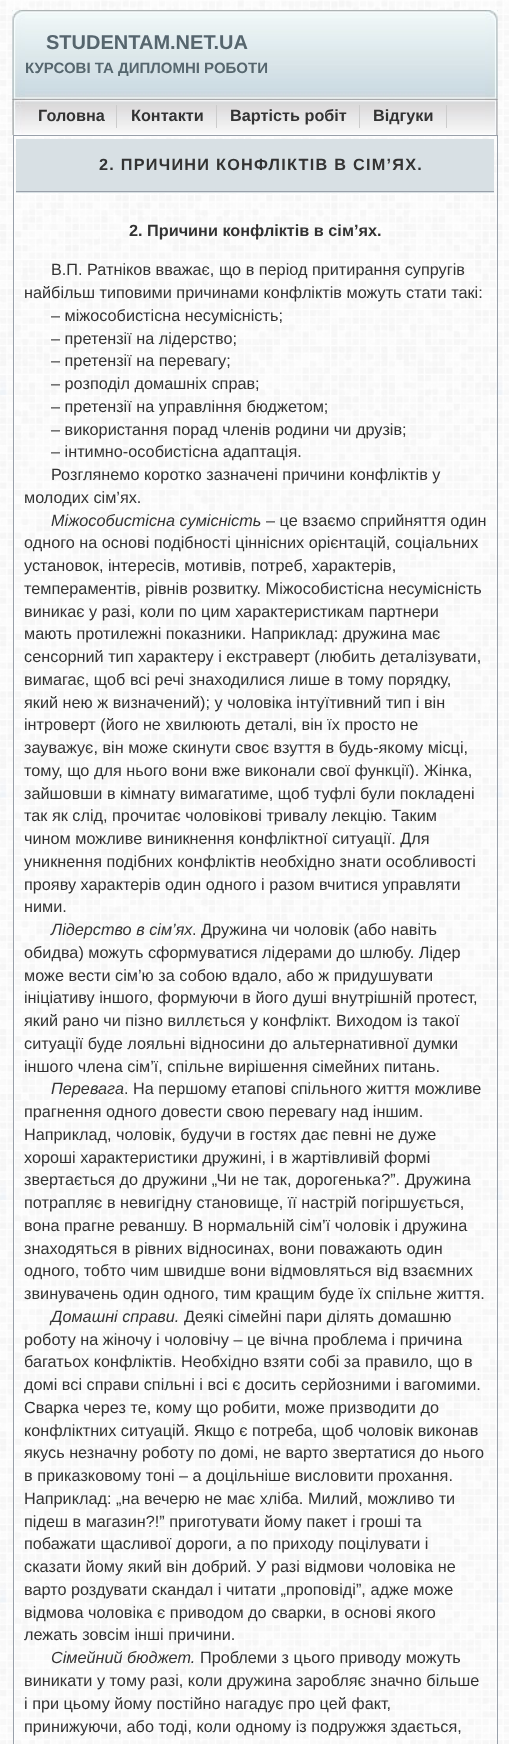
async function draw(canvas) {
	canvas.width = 509;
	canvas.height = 1744;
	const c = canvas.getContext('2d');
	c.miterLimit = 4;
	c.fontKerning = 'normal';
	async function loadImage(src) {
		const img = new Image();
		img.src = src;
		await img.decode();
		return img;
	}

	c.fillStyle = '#fff';
	c.fillRect(0, 0, 509, 1744);
	c.drawImage(await loadImage('img1.png'), 0, 0, 509, 1744);
	c.drawImage(await loadImage('img2.png'), 12, 10, 486, 89);
	c.drawImage(await loadImage('img5.png'), 12, 98, 486, 37);
	c.drawImage(await loadImage('img3.png'), 12, 10, 13, 89);
	c.font = 'bold 20px Liberation Sans';
	c.fillStyle = '#56666e';
	c.fillText('STUDENTAM.NET.UA', 46, 49);
	c.font = 'bold 15px Liberation Sans';
	c.fillText('КУРСОВІ ТА ДИПЛОМНІ РОБОТИ', 25, 73);
	c.drawImage(await loadImage('img4.png'), 485, 10, 13, 89);
	c.drawImage(await loadImage('img6.png'), 12, 98, 13, 37);
	c.fillStyle = '#ccc';
	c.fillRect(116, 105, 1, 23);
	c.font = 'bold 16.25px Liberation Sans';
	c.fillStyle = '#333';
	c.fillText('Головна', 38, 121);
	c.fillStyle = '#ccc';
	c.fillRect(216, 105, 1, 23);
	c.fillStyle = '#333';
	c.fillText('Контакти', 131, 121);
	c.fillStyle = '#ccc';
	c.fillRect(359, 105, 1, 23);
	c.fillStyle = '#333';
	c.fillText('Вартість робіт', 230, 121);
	c.fillStyle = '#ccc';
	c.fillRect(446, 105, 1, 23);
	c.fillStyle = '#333';
	c.fillText('Відгуки', 373, 121);
	c.drawImage(await loadImage('img7.png'), 485, 98, 13, 37);
	c.fillStyle = '#d8e0e4';
	c.fillRect(16, 139, 478, 54);
	c.fillStyle = '#99a0aa';
	c.fillRect(16, 191, 478, 1);
	c.strokeStyle = '#99a0aa';
	c.strokeRect(13.5, 135.5, 484, 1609);
	c.letterSpacing = '1.25px';
	c.fillStyle = '#333';
	c.fillText('2. ПРИЧИНИ КОНФЛІКТІВ В СІМ’ЯХ.', 99, 170);
	c.letterSpacing = '0px';
	c.fillText('2. Причини конфліктів в сім’ях.', 129, 236);
	c.font = '16.25px Liberation Sans';
	for (const [text, x, y] of [
		['В.П. Ратніков вважає, що в період притирання супругів', 51, 275],
		['найбільш типовими причинами конфліктів можуть стати такі:', 24, 298],
		['– міжособистісна несумісність;', 51, 321],
		['– претензії на лідерство;', 51, 344],
		['– претензії на перевагу;', 51, 366],
		['– розподіл домашніх справ;', 51, 389],
		['– претензії на управління бюджетом;', 51, 412],
		['– використання порад членів родини чи друзів;', 51, 435],
		['– інтимно-особистісна адаптація.', 51, 457],
		['Розглянемо коротко зазначені причини конфліктів у', 51, 480],
		['молодих сім’ях.', 24, 503],
	]) {
		c.fillText(text, x, y);
	}
	c.font = 'italic 16.25px Liberation Sans';
	c.fillText('Міжособистісна сумісність', 51, 526);
	c.font = '16.25px Liberation Sans';
	for (const [text, x, y] of [
		['– це взаємо сприйняття один', 266, 526],
		['одного на основі подібності ціннісних орієнтацій, соціальних', 24, 548],
		['установок, інтересів, мотивів, потреб, характерів,', 24, 571],
		['темпераментів, рівнів розвитку. Міжособистісна несумісність', 24, 594],
		['виникає у разі, коли по цим характеристикам партнери', 24, 617],
		['мають протилежні показники. Наприклад: дружина має', 24, 639],
		['сенсорний тип характеру і екстраверт (любить деталізувати,', 24, 662],
		['вимагає, щоб всі речі знаходилися лише в тому порядку,', 24, 685],
		['який нею ж визначений); у чоловіка інтуїтивний тип і він', 24, 708],
		['інтроверт (його не хвилюють деталі, він їх просто не', 24, 730],
		['зауважує, він може скинути своє взуття в будь-якому місці,', 24, 753],
		['тому, що для нього вони вже виконали свої функції). Жінка,', 24, 776],
		['зайшовши в кімнату вимагатиме, щоб туфлі були покладені', 24, 799],
		['так як слід, прочитає чоловікові тривалу лекцію. Таким', 24, 821],
		['чином можливе виникнення конфліктної ситуації. Для', 24, 844],
		['уникнення подібних конфліктів необхідно знати особливості', 24, 867],
		['прояву характерів один одного і разом вчитися управляти', 24, 890],
		['ними.', 24, 912],
	]) {
		c.fillText(text, x, y);
	}
	c.font = 'italic 16.25px Liberation Sans';
	c.fillText('Лідерство в сім’ях', 51, 935);
	c.font = '16.25px Liberation Sans';
	for (const [text, x, y] of [
		['. Дружина чи чоловік (або навіть', 192, 935],
		['обидва) можуть сформуватися лідерами до шлюбу. Лідер', 24, 958],
		['може вести сім’ю за собою вдало, або ж придушувати', 24, 981],
		['ініціативу іншого, формуючи в його душі внутрішній протест,', 24, 1003],
		['який рано чи пізно виллється у конфлікт. Виходом із такої', 24, 1026],
		['ситуації буде лояльні відносини до альтернативної думки', 24, 1049],
		['іншого члена сім’ї, спільне вирішення сімейних питань.', 24, 1072],
	]) {
		c.fillText(text, x, y);
	}
	c.font = 'italic 16.25px Liberation Sans';
	c.fillText('Перевага', 51, 1094);
	c.font = '16.25px Liberation Sans';
	for (const [text, x, y] of [
		['. На першому етапові спільного життя можливе', 124, 1094],
		['прагнення одного довести свою перевагу над іншим.', 24, 1117],
		['Наприклад, чоловік, будучи в гостях дає певні не дуже', 24, 1140],
		['хороші характеристики дружині, і в жартівливій формі', 24, 1163],
		['звертається до дружини „Чи не так, дорогенька?”. Дружина', 24, 1185],
		['потрапляє в невигідну становище, її настрій погіршується,', 24, 1208],
		['вона прагне реваншу. В нормальній сім’ї чоловік і дружина', 24, 1231],
		['знаходяться в рівних відносинах, вони поважають один', 24, 1254],
		['одного, тобто чим швидше вони відмовляться від взаємних', 24, 1276],
		['звинувачень один одного, тим кращим буде їх спільне життя.', 24, 1299],
	]) {
		c.fillText(text, x, y);
	}
	c.font = 'italic 16.25px Liberation Sans';
	c.fillText('Домашні справи.', 51, 1322);
	c.font = '16.25px Liberation Sans';
	for (const [text, x, y] of [
		['Деякі сімейні пари ділять домашню', 184, 1322],
		['роботу на жіночу і чоловічу – це вічна проблема і причина', 24, 1345],
		['багатьох конфліктів. Необхідно взяти собі за правило, що в', 24, 1367],
		['домі всі справи спільні і всі є досить серйозними і вагомими.', 24, 1390],
		['Сварка через те, кому що робити, може призводити до', 24, 1413],
		['конфліктних ситуацій. Якщо є потреба, щоб чоловік виконав', 24, 1436],
		['якусь незначну роботу по домі, не варто звертатися до нього', 24, 1458],
		['в приказковому тоні – а доцільніше висловити прохання.', 24, 1481],
		['Наприклад: „на вечерю не має хліба. Милий, можливо ти', 24, 1504],
		['підеш в магазин?!” приготувати йому пакет і гроші та', 24, 1527],
		['побажати щасливої дороги, а по приходу поцілувати і', 24, 1549],
		['сказати йому який він добрий. У разі відмови чоловіка не', 24, 1572],
		['варто роздувати скандал і читати „проповіді”, адже може', 24, 1595],
		['відмова чоловіка є приводом до сварки, в основі якого', 24, 1618],
		['лежать зовсім інші причини.', 24, 1640],
	]) {
		c.fillText(text, x, y);
	}
	c.font = 'italic 16.25px Liberation Sans';
	c.fillText('Сімейний бюджет.', 51, 1663);
	c.font = '16.25px Liberation Sans';
	for (const [text, x, y] of [
		['Проблеми з цього приводу можуть', 200, 1663],
		['виникати у тому разі, коли дружина заробляє значно більше', 24, 1686],
		['і при цьому йому постійно нагадує про цей факт,', 24, 1709],
		['принижуючи, або тоді, коли одному із подружжя здається,', 24, 1732],
	]) {
		c.fillText(text, x, y);
	}
}

draw(document.querySelector('canvas'));
